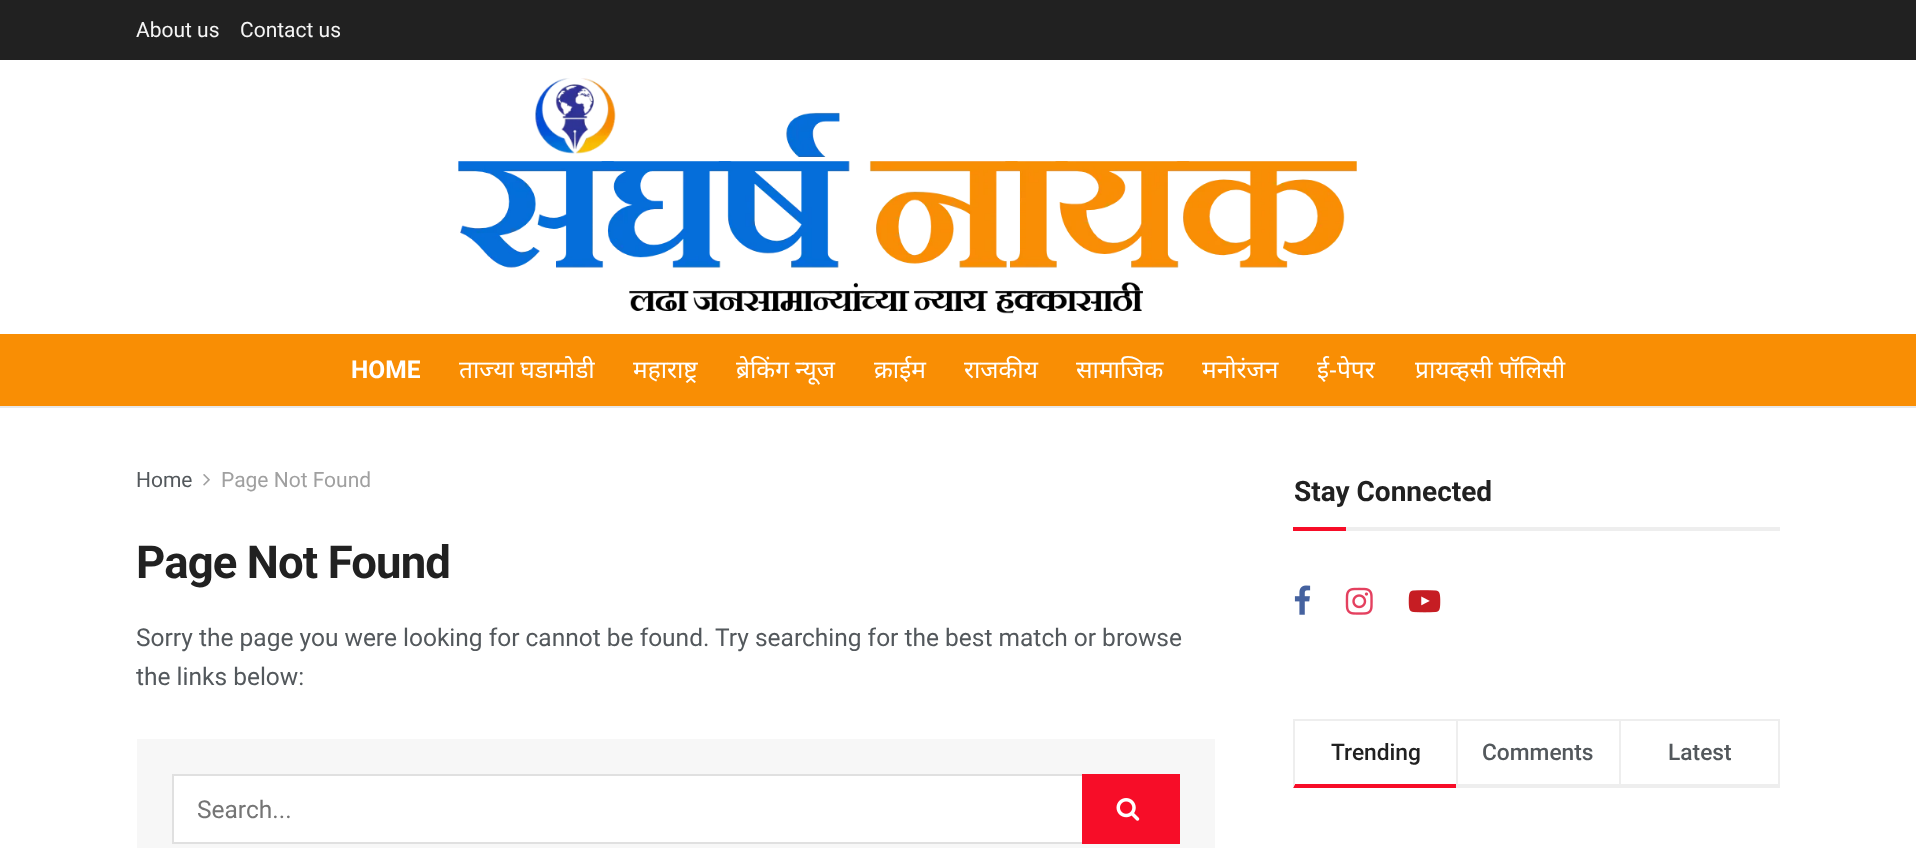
async function draw(canvas) {
	canvas.width = 1916;
	canvas.height = 848;
	const c = canvas.getContext('2d');
	c.miterLimit = 4;
	c.fontKerning = 'normal';
	async function loadImage(src) {
		const img = new Image();
		img.src = src;
		await img.decode();
		return img;
	}

	c.fillStyle = '#fff';
	c.fillRect(0, 0, 1916, 848);
	c.fillStyle = '#212121';
	c.fillRect(0, 0, 1916, 60);
	c.font = '21px Roboto';
	c.fillStyle = '#f5f5f5';
	c.fillText('About us', 136, 37);
	c.fillText('Contact us', 240, 37);
	c.drawImage(await loadImage('img1.png'), 458, 78, 899, 236);
	c.fillStyle = '#f98e04';
	c.fillRect(0, 334, 1916, 72);
	c.fillStyle = '#e8e8e8';
	c.fillRect(0, 406, 1916, 2);
	c.font = 'bold 24.5px Roboto';
	c.fillStyle = '#fff';
	c.fillText('HOME', 351, 378);
	c.font = '24.5px Noto Sans';
	for (const [text, x, y] of [
		['ताज्या घडामोडी', 459, 378],
		['महाराष्ट्र', 633, 378],
		['ब्रेकिंग न्यूज', 736, 378],
		['क्राईम', 874, 378],
		['राजकीय', 964, 378],
		['सामाजिक', 1076, 378],
		['मनोरंजन', 1202, 378],
		['ई-पेपर', 1317, 378],
		['प्रायव्हसी पॉलिसी', 1415, 378],
	]) {
		c.fillText(text, x, y);
	}
	c.font = '21px Roboto';
	c.fillStyle = '#53585c';
	c.fillText('Home', 136, 487);
	c.drawImage(await loadImage('img2.png'), 203, 474, 7, 12);
	c.fillStyle = '#a0a0a0';
	c.fillText('Page Not Found', 221, 487);
	c.letterSpacing = '-0.9px';
	c.font = 'bold 45.5px Roboto';
	c.fillStyle = '#212121';
	c.fillText('Page Not Found', 136, 578);
	c.letterSpacing = '0px';
	c.font = '24.5px Roboto';
	c.fillStyle = '#53585c';
	c.fillText('Sorry the page you were looking for cannot be found. Try searching for the best match or browse', 136, 646);
	c.fillText('the links below:', 136, 685);
	c.fillStyle = '#f7f7f7';
	c.fillRect(137, 739, 1078, 109);
	c.fillStyle = '#fff';
	c.fillRect(174, 776, 908, 66);
	c.strokeStyle = '#e0e0e0';
	c.lineWidth = 2;
	c.strokeRect(173, 775, 1006, 68);
	c.fillStyle = '#757575';
	c.fillText('Search...', 197, 818);
	c.fillStyle = '#f70d28';
	c.fillRect(1082, 774, 98, 70);
	c.drawImage(await loadImage('img3.png'), 1116, 798, 24, 23);
	c.fillStyle = '#eee';
	c.fillRect(1346, 527, 434, 4);
	c.font = 'bold 28px Roboto';
	c.fillStyle = '#212121';
	c.fillText('Stay Connected', 1294, 501);
	c.fillStyle = '#f70d28';
	c.fillRect(1293, 527, 53, 4);
	c.drawImage(await loadImage('img4.png'), 1294, 585, 17, 30);
	c.drawImage(await loadImage('img5.png'), 1345, 587, 28, 28);
	c.drawImage(await loadImage('img6.png'), 1408, 590, 33, 23);
	c.fillStyle = '#eee';
	c.fillRect(1293, 719, 487, 2);
	c.fillStyle = '#f70d28';
	c.beginPath();
	c.moveTo(1456, 788);
	c.lineTo(1293, 788);
	c.lineTo(1295, 784);
	c.lineTo(1456, 784);
	c.closePath();
	c.fill();
	c.fillStyle = '#eee';
	c.beginPath();
	c.moveTo(1293, 788);
	c.lineTo(1293, 719);
	c.lineTo(1295, 721);
	c.lineTo(1295, 784);
	c.closePath();
	c.fill();
	c.font = '500 22.75px Roboto';
	c.fillStyle = '#212121';
	c.fillText('Trending', 1331, 760);
	c.fillStyle = '#eee';
	c.fillRect(1456, 784, 163, 4);
	c.fillRect(1456, 719, 2, 69);
	c.fillStyle = '#53585c';
	c.fillText('Comments', 1482, 760);
	for (const [x, y, w, h, color] of [
		[1778, 719, 2, 69, '#eee'],
		[1619, 784, 161, 4, '#eee'],
		[1619, 719, 2, 69, '#eee'],
	]) {
		c.fillStyle = color;
		c.fillRect(x, y, w, h);
	}
	c.fillStyle = '#53585c';
	c.fillText('Latest', 1668, 760);
}

draw(document.querySelector('canvas'));
